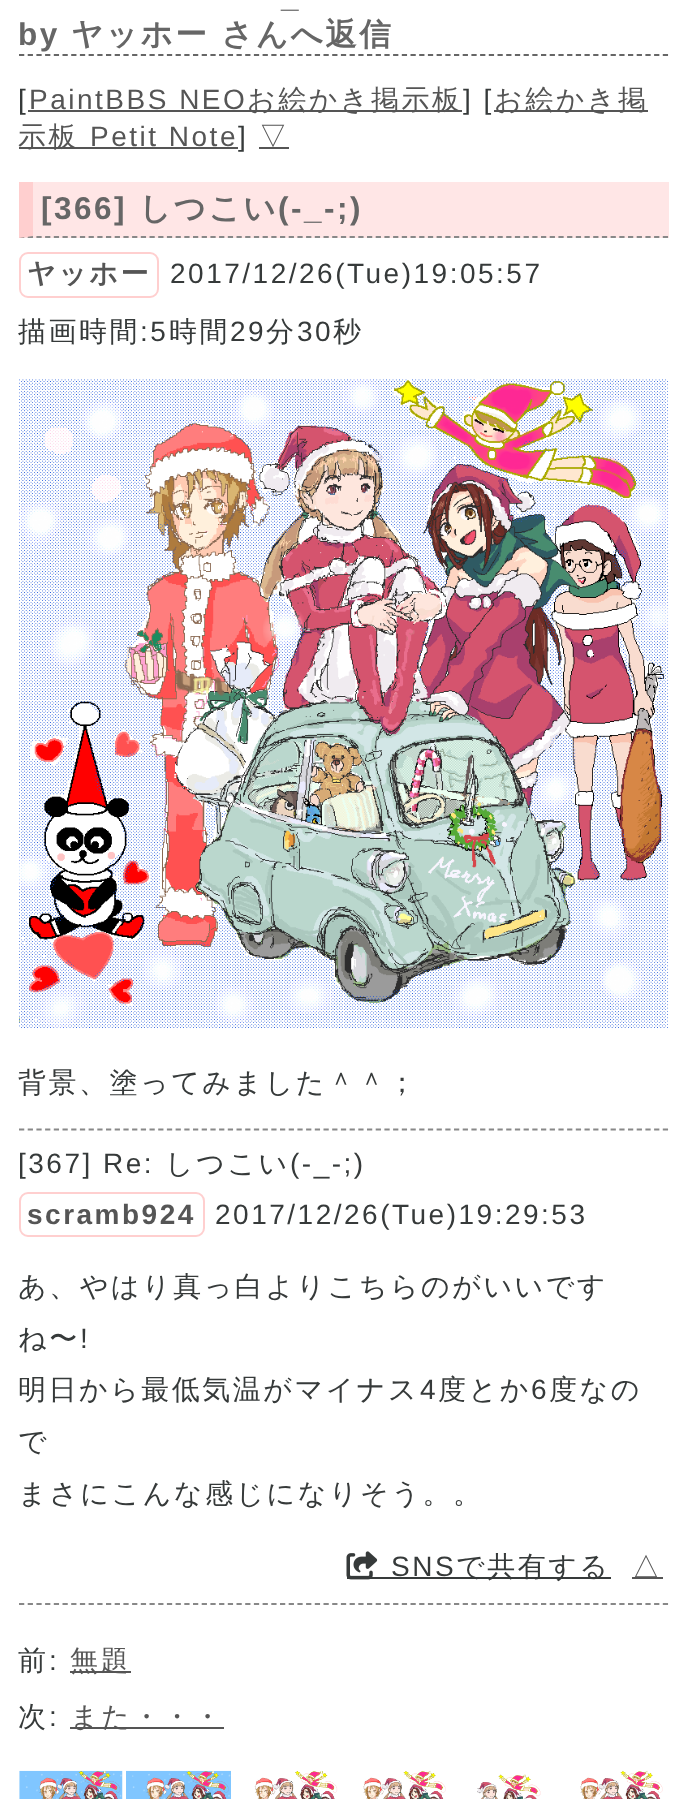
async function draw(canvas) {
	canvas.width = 685;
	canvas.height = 1799;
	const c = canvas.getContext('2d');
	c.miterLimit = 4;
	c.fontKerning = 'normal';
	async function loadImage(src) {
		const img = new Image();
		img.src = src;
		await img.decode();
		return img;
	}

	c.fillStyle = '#fff';
	c.fillRect(0, 0, 685, 1799);
	c.beginPath();
	c.moveTo(19, 55);
	c.lineTo(668.5, 55);
	c.strokeStyle = '#666';
	c.lineWidth = 1.8;
	c.setLineDash([5.25, 3.45]);
	c.stroke();
	c.letterSpacing = '2.5px';
	c.font = 'bold 31.5px Liberation Sans';
	c.fillStyle = '#666';
	c.fillText('_', 281, 7);
	c.fillText('by', 18, 45);
	c.font = 'bold 31.5px WenQuanYi Zen Hei';
	c.fillText('ヤッホー さんへ返信', 71, 45);
	c.font = '28px Liberation Sans';
	c.fillStyle = '#363a3a';
	c.fillText('[', 18, 109);
	c.fillStyle = '#555';
	c.fillText('PaintBBS NEO', 29, 109);
	c.fillRect(28, 110, 434, 2);
	c.font = '500 28px WenQuanYi Zen Hei';
	c.fillText('お絵かき掲示板', 247, 109);
	c.font = '28px Liberation Sans';
	c.fillStyle = '#363a3a';
	c.fillText('] [', 463, 109);
	c.fillStyle = '#555';
	c.fillRect(494, 110, 154, 2);
	c.font = '500 28px WenQuanYi Zen Hei';
	c.fillText('お絵かき掲', 494, 109);
	c.fillRect(19, 147, 219, 2);
	c.fillText('示板', 18, 146);
	c.font = '28px Liberation Sans';
	c.fillText('Petit Note', 90, 146);
	c.fillStyle = '#363a3a';
	c.fillText(']', 238, 146);
	c.fillStyle = '#555';
	c.fillRect(259, 147, 30, 2);
	c.font = '500 28px WenQuanYi Zen Hei';
	c.fillText('▽', 259, 146);
	c.fillStyle = '#ffe6e6';
	c.fillRect(19, 182, 650, 56);
	c.beginPath();
	c.moveTo(19, 237);
	c.lineTo(668.5, 237);
	c.strokeStyle = '#888';
	c.stroke();
	c.fillStyle = '#ffcfcf';
	c.beginPath();
	c.moveTo(19, 238);
	c.lineTo(19, 182);
	c.lineTo(33, 182);
	c.lineTo(33, 236);
	c.closePath();
	c.fill();
	c.font = 'bold 31.5px Liberation Sans';
	c.fillStyle = '#666';
	c.fillText('[366]', 41, 219);
	c.font = 'bold 31.5px WenQuanYi Zen Hei';
	c.fillText('しつこい', 139, 219);
	c.font = 'bold 31.5px Liberation Sans';
	c.fillText('(-_-;)', 278, 219);
	c.beginPath();
	c.roundRect(20, 253, 138, 44, 8);
	c.strokeStyle = '#ffcfcf';
	c.lineWidth = 2;
	c.setLineDash([]);
	c.stroke();
	c.font = 'bold 28px WenQuanYi Zen Hei';
	c.fillStyle = '#555';
	c.fillText('ヤッホー', 27, 283);
	c.font = '28px Liberation Sans';
	c.fillStyle = '#363a3a';
	c.fillText('2017/12/26(Tue)19:05:57', 170, 283);
	c.font = '500 28px WenQuanYi Zen Hei';
	c.fillText('描画時間', 18, 341);
	c.font = '28px Liberation Sans';
	c.fillText(':5', 140, 341);
	c.font = '500 28px WenQuanYi Zen Hei';
	c.fillText('時間', 169, 341);
	c.font = '28px Liberation Sans';
	c.fillText('29', 230, 341);
	c.font = '500 28px WenQuanYi Zen Hei';
	c.fillText('分', 266, 341);
	c.font = '28px Liberation Sans';
	c.fillText('30', 297, 341);
	c.font = '500 28px WenQuanYi Zen Hei';
	c.fillText('秒', 333, 341);
	c.drawImage(await loadImage('img1.png'), 19, 379, 649, 649);
	c.fillText('背景、塗ってみました＾＾；', 18, 1092);
	c.beginPath();
	c.moveTo(19, 1129.5);
	c.lineTo(668.5, 1129.5);
	c.strokeStyle = '#888';
	c.lineWidth = 1.8;
	c.setLineDash([5.25, 3.45]);
	c.stroke();
	c.font = '28px Liberation Sans';
	c.fillText('[367] Re:', 18, 1173);
	c.font = '500 28px WenQuanYi Zen Hei';
	c.fillText('しつこい', 165, 1173);
	c.font = '28px Liberation Sans';
	c.fillText('(-_-;)', 290, 1173);
	c.beginPath();
	c.roundRect(20, 1193, 184, 43, 8);
	c.strokeStyle = '#ffcfcf';
	c.lineWidth = 2;
	c.setLineDash([]);
	c.stroke();
	c.font = 'bold 28px Liberation Sans';
	c.fillStyle = '#555';
	c.fillText('scramb924', 27, 1224);
	c.font = '28px Liberation Sans';
	c.fillStyle = '#363a3a';
	c.fillText('2017/12/26(Tue)19:29:53', 215, 1224);
	c.font = '500 28px WenQuanYi Zen Hei';
	c.fillText('あ、やはり真っ白よりこちらのがいいです', 18, 1296);
	c.fillText('ね〜', 18, 1348);
	c.font = '28px Liberation Sans';
	c.fillText('!', 80, 1348);
	c.font = '500 28px WenQuanYi Zen Hei';
	c.fillText('明日から最低気温がマイナス', 18, 1399);
	c.font = '28px Liberation Sans';
	c.fillText('4', 420, 1399);
	c.font = '500 28px WenQuanYi Zen Hei';
	c.fillText('度とか', 438, 1399);
	c.font = '28px Liberation Sans';
	c.fillText('6', 531, 1399);
	c.font = '500 28px WenQuanYi Zen Hei';
	for (const [text, x, y] of [
		['度なの', 549, 1399],
		['で', 18, 1451],
		['まさにこんな感じになりそう。。', 18, 1503],
	]) {
		c.fillText(text, x, y);
	}
	c.fillRect(347, 1577, 264, 2);
	c.drawImage(await loadImage('img2.png'), 346, 1551, 32, 29);
	c.font = '28px Liberation Sans';
	c.fillText('SNS', 391, 1576);
	c.font = '500 28px WenQuanYi Zen Hei';
	c.fillText('で共有する', 456, 1576);
	c.fillStyle = '#555';
	c.fillRect(632, 1577, 31, 2);
	c.fillText('△', 632, 1576);
	c.beginPath();
	c.moveTo(19, 1604);
	c.lineTo(668.5, 1604);
	c.strokeStyle = '#888';
	c.lineWidth = 1.8;
	c.setLineDash([5.25, 3.45]);
	c.stroke();
	c.fillStyle = '#363a3a';
	c.fillText('前', 18, 1670);
	c.font = '28px Liberation Sans';
	c.fillText(':', 49, 1670);
	c.fillStyle = '#555';
	c.fillRect(70, 1671, 61, 2);
	c.font = '500 28px WenQuanYi Zen Hei';
	c.fillText('無題', 70, 1670);
	c.fillStyle = '#363a3a';
	c.fillText('次', 18, 1726);
	c.font = '28px Liberation Sans';
	c.fillText(':', 49, 1726);
	c.fillStyle = '#555';
	c.fillRect(70, 1727, 154, 2);
	c.font = '500 28px WenQuanYi Zen Hei';
	c.fillText('また・・・', 70, 1726);
	c.drawImage(await loadImage('img3.png'), 19, 1770, 104, 29);
	c.drawImage(await loadImage('img4.png'), 126, 1770, 105, 29);
	c.drawImage(await loadImage('img5.png'), 254, 1770, 84, 29);
	c.drawImage(await loadImage('img6.png'), 363, 1770, 83, 29);
	c.drawImage(await loadImage('img7.png'), 477, 1774, 64, 25);
	c.drawImage(await loadImage('img6.png'), 580, 1770, 83, 29);
}

draw(document.querySelector('canvas'));
